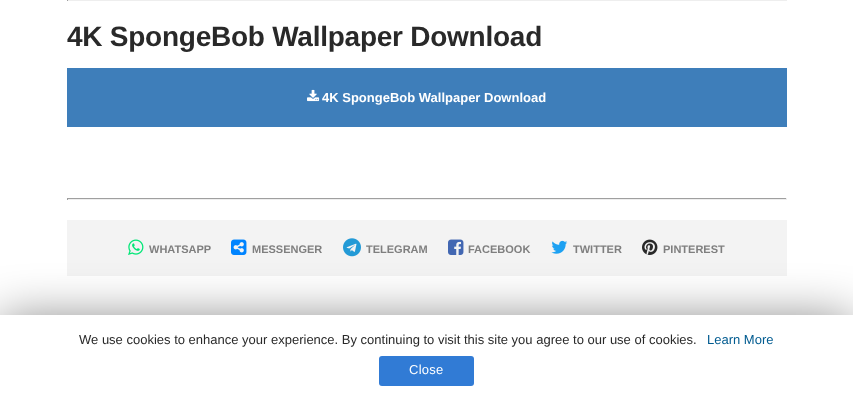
async function draw(canvas) {
	canvas.width = 853;
	canvas.height = 406;
	const c = canvas.getContext('2d');
	c.miterLimit = 4;
	c.fontKerning = 'normal';
	async function loadImage(src) {
		const img = new Image();
		img.src = src;
		await img.decode();
		return img;
	}

	c.fillStyle = '#fff';
	c.fillRect(0, 0, 853, 406);
	c.fillStyle = '#eee';
	c.fillRect(67, 0, 720, 1);
	c.fillStyle = '#9f9f9f';
	c.fillRect(67, 0, 1, 1);
	c.letterSpacing = '-0.25px';
	c.font = 'bold 28px Liberation Sans';
	c.fillStyle = '#292929';
	c.fillText('4K SpongeBob Wallpaper Download', 67, 46);
	c.fillStyle = '#3e7eba';
	c.fillRect(67, 68, 720, 59);
	c.drawImage(await loadImage('img1.png'), 307, 89, 13, 13);
	c.letterSpacing = '0px';
	c.font = 'bold 13px Liberation Sans';
	c.fillStyle = '#fff';
	c.fillText('4K SpongeBob Wallpaper Download', 322, 102);
	for (const [x, y, w, h, color] of [
		[67, 198, 720, 1, '#9f9f9f'],
		[786, 198, 1, 2, '#eee'],
		[67, 199, 720, 1, '#eee'],
		[67, 198, 1, 2, '#9f9f9f'],
		[67, 220, 720, 56, '#f3f3f3'],
	]) {
		c.fillStyle = color;
		c.fillRect(x, y, w, h);
	}
	c.drawImage(await loadImage('img2.png'), 128, 239, 16, 16);
	c.font = 'bold 11px Liberation Sans';
	c.fillStyle = '#7f7f7f';
	c.fillText('WHATSAPP', 149, 253);
	c.drawImage(await loadImage('img3.png'), 231, 239, 16, 16);
	c.fillText('MESSENGER', 252, 253);
	c.drawImage(await loadImage('img4.png'), 343, 238, 18, 19);
	c.fillText('TELEGRAM', 366, 253);
	c.drawImage(await loadImage('img5.png'), 448, 239, 16, 16);
	c.fillText('FACEBOOK', 468, 253);
	c.drawImage(await loadImage('img6.png'), 551, 240, 17, 14);
	c.fillText('TWITTER', 573, 253);
	c.drawImage(await loadImage('img7.png'), 642, 239, 16, 16);
	c.fillText('PINTEREST', 663, 253);
	c.fillStyle = '#00000080';
	c.filter = 'blur(25px)';
	c.beginPath();
	c.rect(0, 320, 853, 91);
	c.fill();
	c.filter = 'none';
	c.fillStyle = '#fff';
	c.fillRect(0, 315, 853, 91);
	c.font = '13px Liberation Sans';
	c.fillStyle = '#292929';
	c.fillText('We use cookies to enhance your experience. By continuing to visit this site you agree to our use of cookies.', 79, 344);
	c.fillStyle = '#005b90';
	c.fillText('Learn More', 707, 344);
	c.fillStyle = '#317bd5';
	c.beginPath();
	c.roundRect(379, 356, 95, 30, 3);
	c.fill();
	c.letterSpacing = '0.25px';
	c.fillStyle = '#fff';
	c.fillText('Close', 409, 374);
}

draw(document.querySelector('canvas'));
